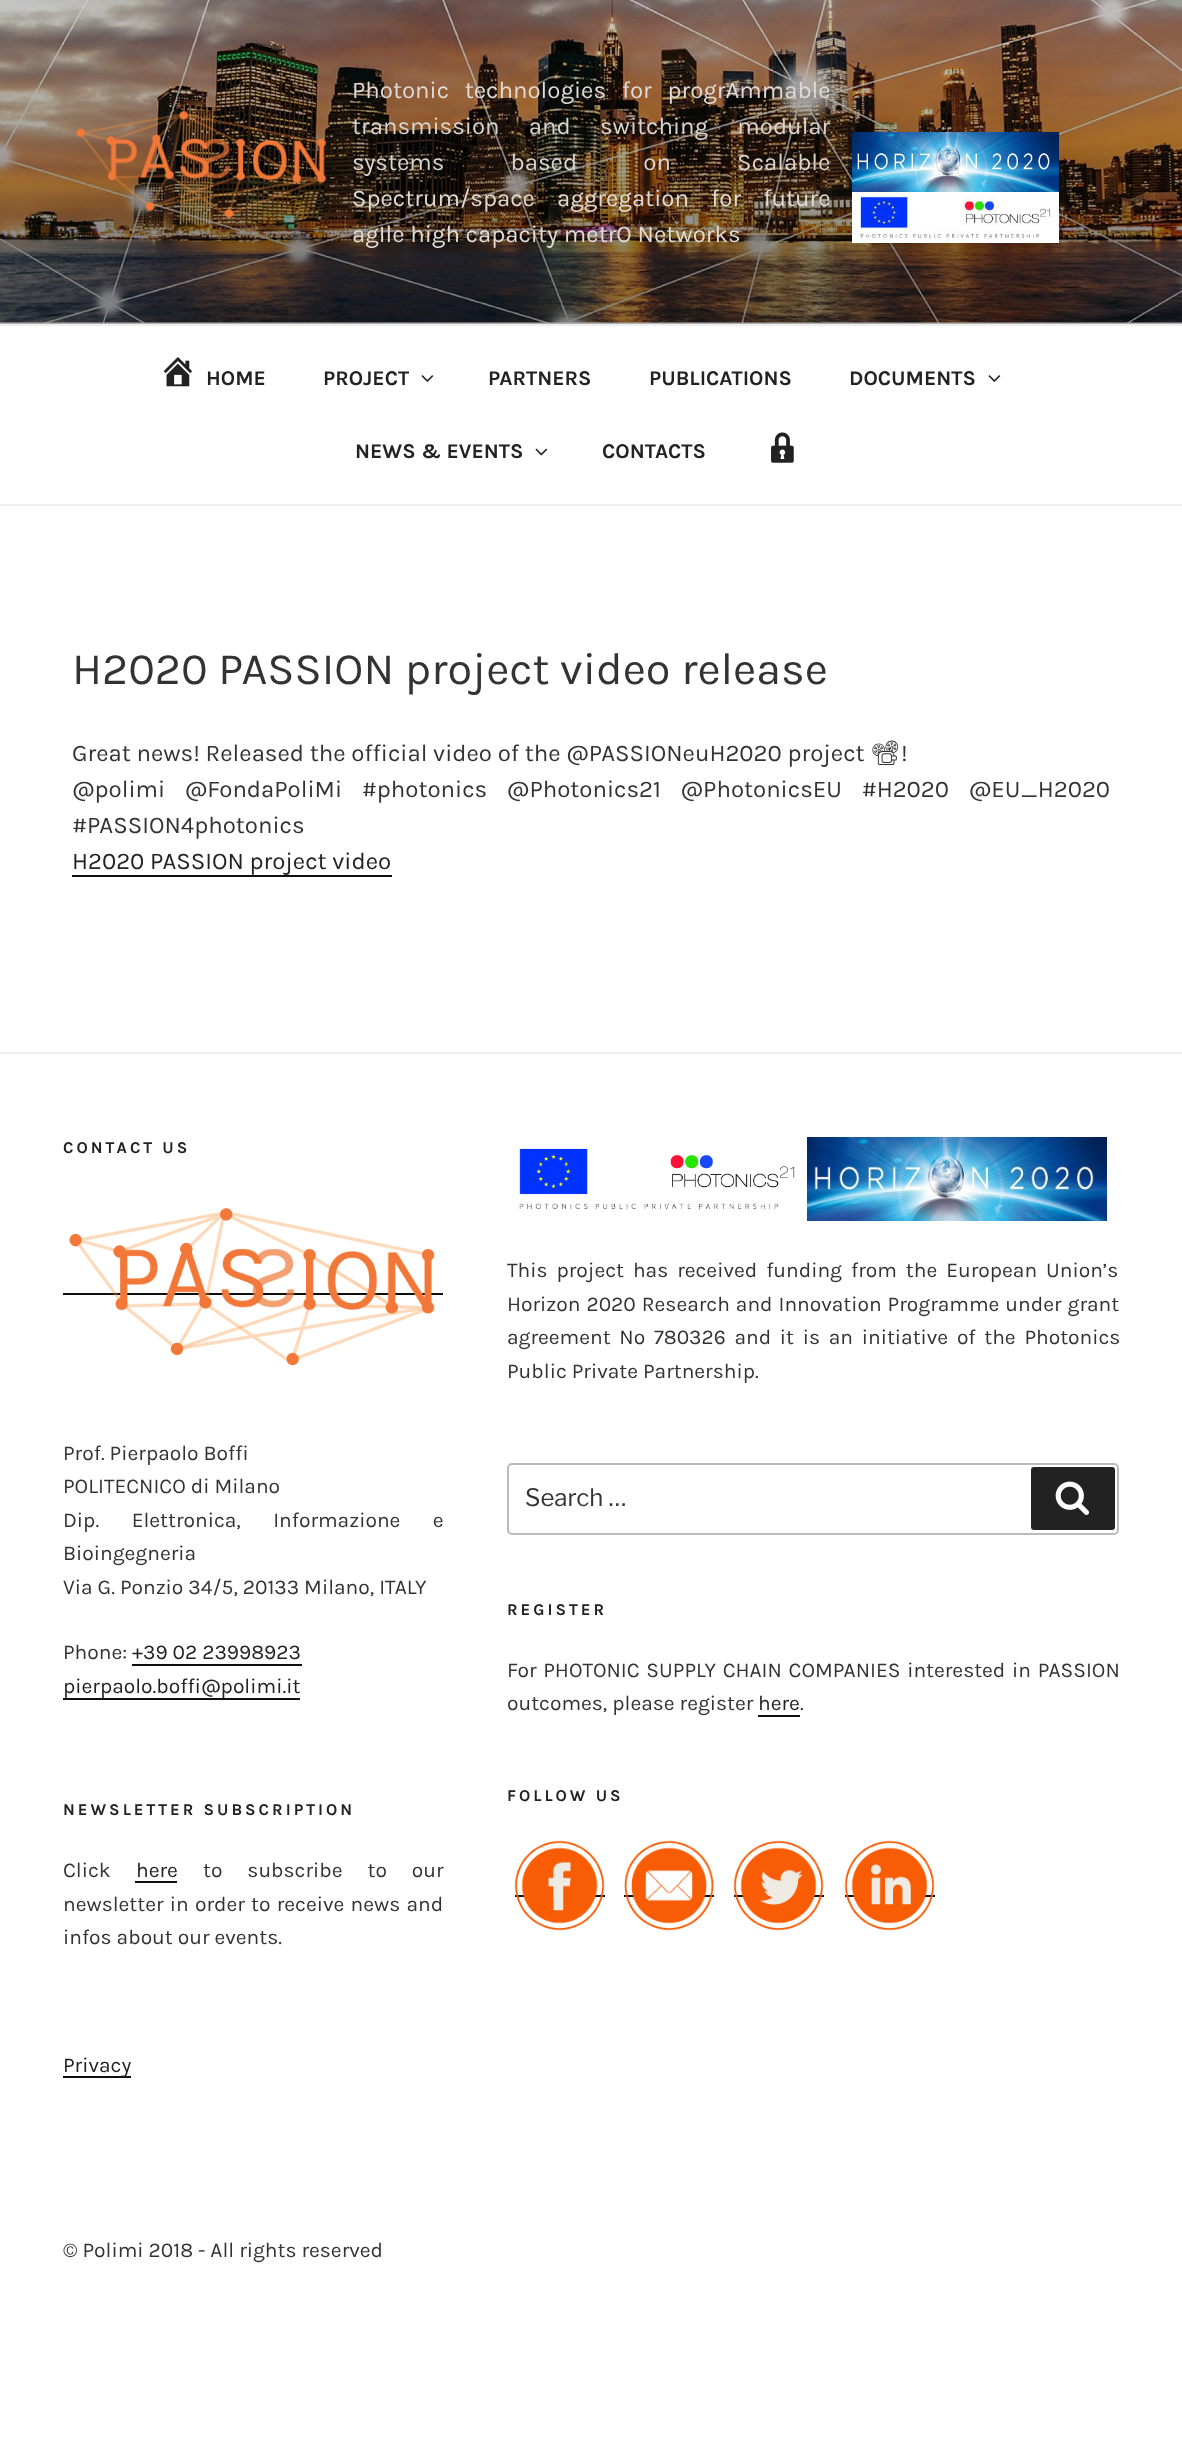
async function draw(canvas) {
	canvas.width = 1182;
	canvas.height = 2438;
	const c = canvas.getContext('2d');
	c.miterLimit = 4;
	c.fontKerning = 'normal';
	async function loadImage(src) {
		const img = new Image();
		img.src = src;
		await img.decode();
		return img;
	}
	let gradient;

	c.fillStyle = '#fff';
	c.fillRect(0, 0, 1182, 2438);
	c.fillStyle = '#fafafa';
	c.fillRect(0, 322, 1182, 2);
	c.drawImage(await loadImage('img1.png'), 0, 0, 1182, 323);
	gradient = c.createLinearGradient(591, 0, 591, 324);
	gradient.addColorStop(0, '#00000000');
	gradient.addColorStop(0.75, '#0000004d');
	gradient.addColorStop(1, '#0000004d');
	c.fillStyle = gradient;
	c.fillRect(0, 17, 1182, 307);
	c.drawImage(await loadImage('img2.png'), 76, 110, 251, 108);
	c.wordSpacing = '10px';
	c.font = '24px Karla';
	c.fillStyle = '#dfdad6';
	c.fillText('Photonic technologies for progrAmmable', 352, 98);
	c.wordSpacing = '23.5px';
	c.fillStyle = '#d7d4d1';
	c.fillText('transmission and switching modular', 352, 134);
	c.wordSpacing = '60.5px';
	c.fillText('systems based on Scalable', 352, 170);
	c.wordSpacing = '16.5px';
	c.fillStyle = '#dfdad6';
	c.fillText('Spectrum/space aggregation for future', 352, 206);
	c.wordSpacing = '0px';
	c.fillText('agIle high capacity metrO Networks', 352, 242);
	c.drawImage(await loadImage('img3.png'), 852, 132, 207, 60);
	c.drawImage(await loadImage('img4.png'), 852, 192, 207, 51);
	c.fillStyle = '#eee';
	c.fillRect(0, 324, 1182, 2);
	c.fillRect(0, 504, 1182, 2);
	c.drawImage(await loadImage('img5.png'), 163, 357, 30, 30);
	c.font = 'bold 21px Karla';
	c.fillStyle = '#222';
	c.fillText('HOME', 206, 385);
	c.fillText('PROJECT', 323, 385);
	c.drawImage(await loadImage('img6.png'), 421, 375, 13, 7);
	for (const [text, x, y] of [
		['PARTNERS', 488, 385],
		['PUBLICATIONS', 649, 385],
		['DOCUMENTS', 849, 385],
	]) {
		c.fillText(text, x, y);
	}
	c.drawImage(await loadImage('img6.png'), 988, 375, 13, 7);
	c.fillText('NEWS & EVENTS', 355, 458);
	c.drawImage(await loadImage('img7.png'), 535, 448, 13, 8);
	c.fillText('CONTACTS', 602, 458);
	c.drawImage(await loadImage('img8.png'), 771, 432, 23, 31);
	c.font = '45px Karla';
	c.fillStyle = '#333';
	c.fillText('H2020 PASSION project video release', 72, 684);
	c.font = '24px Karla';
	c.fillText('Great news! Released the official video of the @PASSIONeuH2020 project', 72, 761);
	c.font = '24px Noto Emoji';
	c.fillText('📽', 870, 761);
	c.font = '24px Karla';
	c.fillText('!', 901, 761);
	c.wordSpacing = '14px';
	c.fillText('@polimi @FondaPoliMi #photonics @Photonics21 @PhotonicsEU #H2020 @EU_H2020', 72, 797);
	c.wordSpacing = '0px';
	c.fillText('#PASSION4photonics', 72, 833);
	c.fillStyle = '#222';
	c.fillText('H2020 PASSION project video', 72, 869);
	c.fillStyle = '#0f0f0f';
	c.fillRect(72, 875, 320, 2);
	c.fillStyle = '#eee';
	c.fillRect(0, 1052, 1182, 2);
	c.letterSpacing = '3px';
	c.font = 'bold 16.5px Karla';
	c.fillStyle = '#222';
	c.fillText('CONTACT US', 63, 1153);
	c.fillStyle = '#0f0f0f';
	c.fillRect(63, 1293, 380, 2);
	c.drawImage(await loadImage('img9.png'), 69, 1208, 366, 158);
	c.letterSpacing = '0px';
	c.font = '21px Karla';
	c.fillStyle = '#333';
	c.fillText('Prof. Pierpaolo Boffi', 63, 1460);
	c.fillText('POLITECNICO di Milano', 63, 1493);
	c.wordSpacing = '27.5px';
	c.fillText('Dip. Elettronica, Informazione e', 63, 1527);
	c.wordSpacing = '0px';
	for (const [text, x, y] of [
		['Bioingegneria', 63, 1560],
		['Via G. Ponzio 34/5, 20133 Milano, ITALY', 63, 1594],
		['Phone:', 63, 1659],
	]) {
		c.fillText(text, x, y);
	}
	c.fillStyle = '#222';
	c.fillText('+39 02 23998923', 132, 1659);
	c.fillStyle = '#0f0f0f';
	c.fillRect(132, 1664, 170, 2);
	c.fillStyle = '#222';
	c.fillText('pierpaolo.boffi@polimi.it', 63, 1693);
	c.fillStyle = '#0f0f0f';
	c.fillRect(63, 1698, 237, 2);
	c.letterSpacing = '3px';
	c.font = 'bold 16.5px Karla';
	c.fillStyle = '#222';
	c.fillText('NEWSLETTER SUBSCRIPTION', 63, 1815);
	c.letterSpacing = '0px';
	c.font = '21px Karla';
	c.fillStyle = '#333';
	c.fillText('Click', 63, 1877);
	c.fillStyle = '#222';
	c.fillText('here', 136, 1877);
	c.fillStyle = '#0f0f0f';
	c.fillRect(135, 1881, 42, 2);
	c.wordSpacing = '20px';
	c.fillStyle = '#333';
	c.fillText('to subscribe to our', 203, 1877);
	c.wordSpacing = '1.25px';
	c.fillText('newsletter in order to receive news and', 63, 1911);
	c.wordSpacing = '0px';
	c.fillText('infos about our events.', 63, 1944);
	c.fillStyle = '#0f0f0f';
	c.fillRect(63, 2076, 68, 2);
	c.fillStyle = '#222';
	c.fillText('Privacy', 63, 2072);
	c.drawImage(await loadImage('img10.png'), 507, 1148, 300, 62);
	c.drawImage(await loadImage('img11.png'), 807, 1137, 300, 84);
	c.wordSpacing = '4px';
	c.fillStyle = '#333';
	c.fillText('This project has received funding from the European Union’s', 507, 1277);
	c.wordSpacing = '1px';
	c.fillText('Horizon 2020 Research and Innovation Programme under grant', 507, 1311);
	c.wordSpacing = '3.75px';
	c.fillText('agreement No 780326 and it is an initiative of the Photonics', 507, 1344);
	c.wordSpacing = '0px';
	c.fillText('Public Private Partnership.', 507, 1378);
	c.beginPath();
	c.roundRect(508, 1464, 610, 70, 4);
	c.strokeStyle = '#bbb';
	c.lineWidth = 2;
	c.stroke();
	c.font = '100 24px Libre Franklin';
	c.fillText('Search …', 525, 1506);
	c.fillStyle = '#222';
	c.beginPath();
	c.roundRect(1031, 1467, 84, 63, 3);
	c.fill();
	c.drawImage(await loadImage('img12.png'), 1055, 1481, 34, 34);
	c.letterSpacing = '3px';
	c.font = 'bold 16.5px Karla';
	c.fillText('REGISTER', 507, 1615);
	c.letterSpacing = '0px';
	c.wordSpacing = '1.75px';
	c.font = '21px Karla';
	c.fillStyle = '#333';
	c.fillText('For PHOTONIC SUPPLY CHAIN COMPANIES interested in PASSION', 507, 1677);
	c.wordSpacing = '0px';
	c.fillText('outcomes, please register', 507, 1710);
	c.fillStyle = '#222';
	c.fillText('here', 758, 1710);
	c.fillStyle = '#0f0f0f';
	c.fillRect(758, 1715, 42, 2);
	c.fillStyle = '#333';
	c.fillText('.', 800, 1710);
	c.letterSpacing = '3px';
	c.font = 'bold 16.5px Karla';
	c.fillStyle = '#222';
	c.fillText('FOLLOW US', 507, 1801);
	c.fillStyle = '#0f0f0f';
	c.fillRect(507, 1895, 105, 2);
	c.strokeStyle = '#fff';
	c.lineWidth = 12;
	c.strokeRect(509, 1835, 102, 102);
	c.fillRect(617, 1895, 105, 2);
	c.strokeRect(618, 1835, 102, 102);
	c.fillRect(726, 1895, 105, 2);
	c.strokeRect(728, 1835, 102, 102);
	c.fillRect(837, 1895, 105, 2);
	c.strokeRect(839, 1835, 102, 102);
	c.drawImage(await loadImage('img13.png'), 514, 1840, 91, 91);
	c.drawImage(await loadImage('img14.png'), 624, 1840, 90, 91);
	c.drawImage(await loadImage('img15.png'), 733, 1840, 91, 91);
	c.drawImage(await loadImage('img16.png'), 844, 1840, 91, 91);
	c.letterSpacing = '0px';
	c.font = '21px Karla';
	c.fillStyle = '#333';
	c.fillText('© Polimi 2018 - All rights reserved', 63, 2257);
}

draw(document.querySelector('canvas'));
